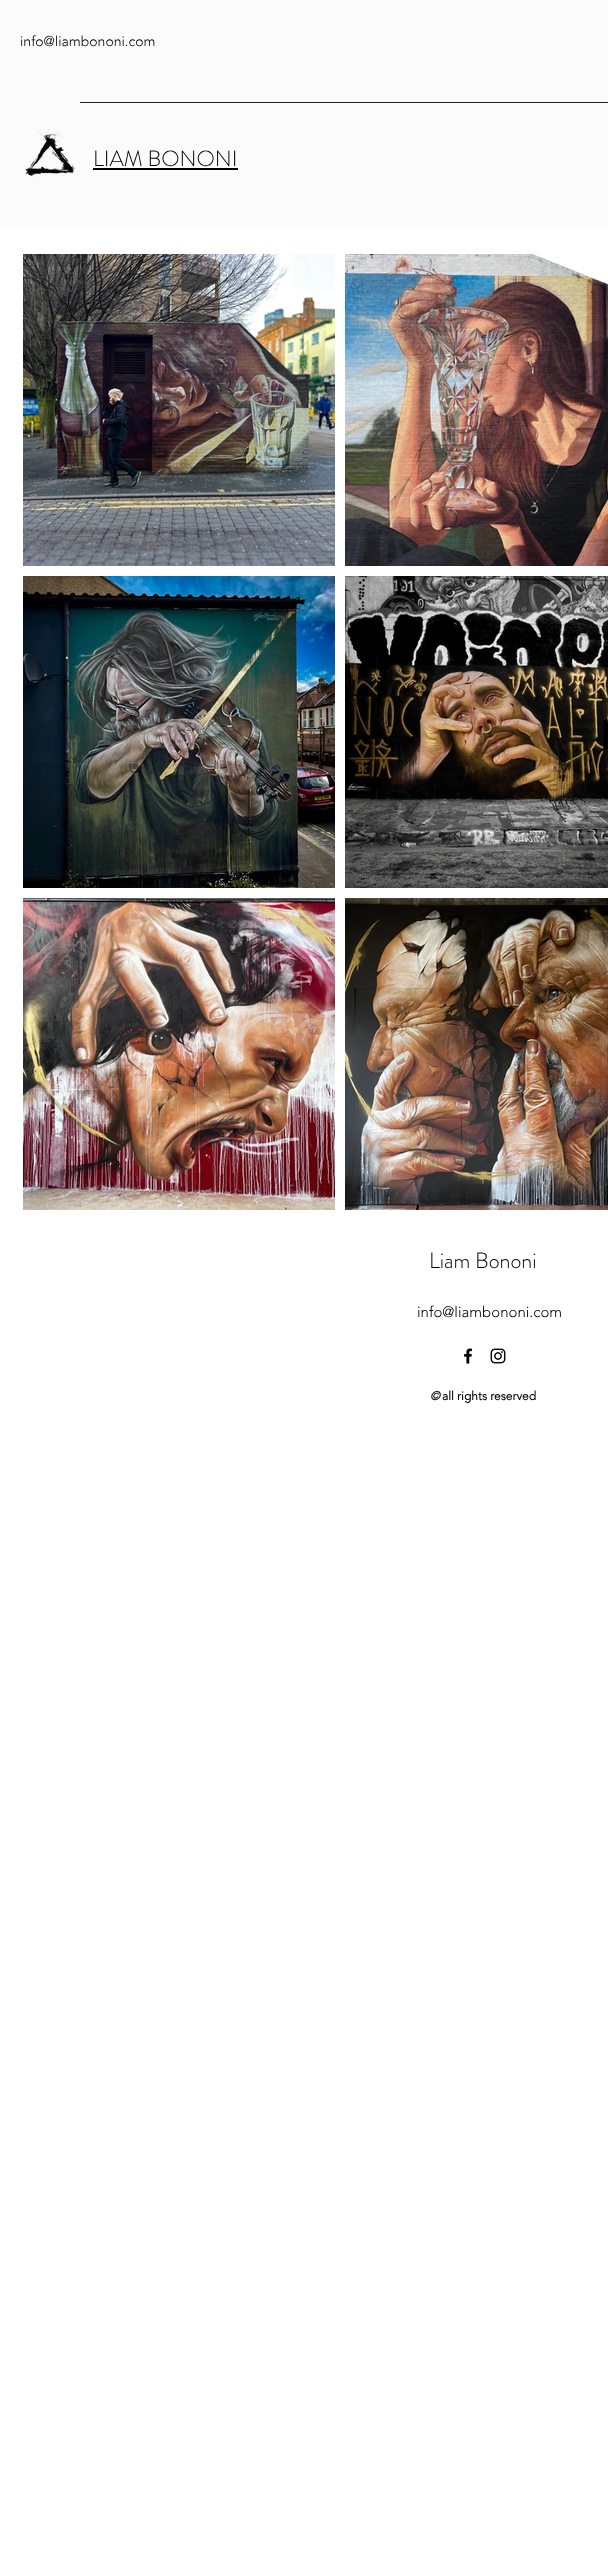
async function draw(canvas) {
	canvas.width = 608;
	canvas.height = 2566;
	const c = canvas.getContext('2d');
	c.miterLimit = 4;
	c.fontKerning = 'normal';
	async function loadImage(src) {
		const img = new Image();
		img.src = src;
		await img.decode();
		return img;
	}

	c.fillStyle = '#fff';
	c.fillRect(0, 0, 608, 2566);
	c.fillStyle = '#fbfbfb';
	c.fillRect(0, 0, 608, 228);
	c.font = '300 14px "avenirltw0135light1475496"';
	c.fillStyle = '#000';
	c.fillText('info@liambononi.com', 20, 46);
	c.fillStyle = '#262626';
	c.fillRect(80, 102, 528, 1);
	c.drawImage(await loadImage('img1.png'), 24, 129, 51, 48);
	c.font = '300 22px "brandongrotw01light"';
	c.fillStyle = '#000';
	c.fillText('LIAM BONONI', 93, 166);
	c.fillRect(93, 168, 145, 2);
	c.drawImage(await loadImage('img2.png'), 23, 254, 312, 312);
	c.drawImage(await loadImage('img3.png'), 345, 254, 263, 312);
	c.drawImage(await loadImage('img4.png'), 23, 576, 312, 312);
	c.drawImage(await loadImage('img5.png'), 345, 576, 263, 312);
	c.drawImage(await loadImage('img6.png'), 23, 898, 312, 312);
	c.drawImage(await loadImage('img7.png'), 345, 898, 263, 312);
	c.fillText('Liam Bononi', 429, 1268);
	c.font = '300 15px "avenirltw0135light1475496"';
	c.fillText('info@liambononi.com', 417, 1317);
	c.drawImage(await loadImage('img8.png'), 464, 1348, 9, 16);
	c.drawImage(await loadImage('img9.png'), 490, 1348, 16, 16);
	c.font = 'italic bold 12px "avenirltw0135light1475496"';
	c.fillText('©', 430, 1400);
	c.font = 'bold 12px "avenirltw0135light1475496"';
	c.fillText('all rights reserved', 442, 1400);
}

draw(document.querySelector('canvas'));
